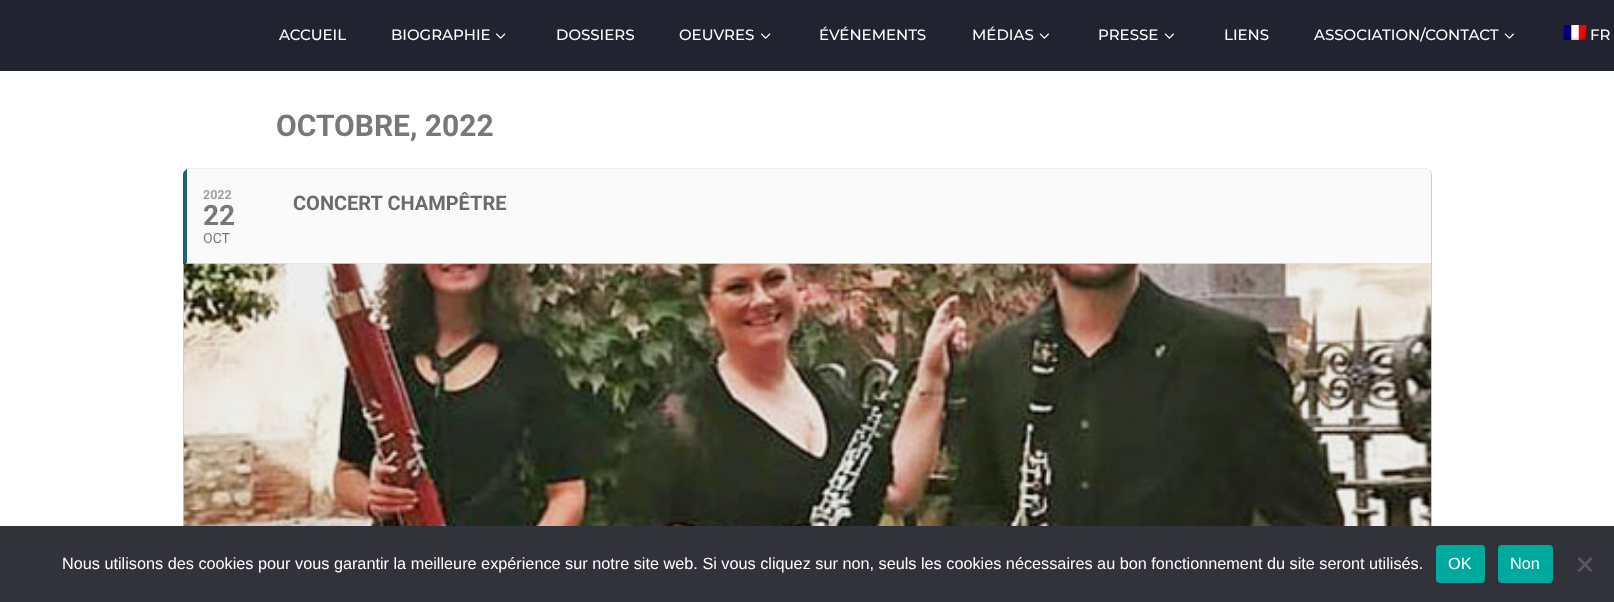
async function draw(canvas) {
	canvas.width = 1614;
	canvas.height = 602;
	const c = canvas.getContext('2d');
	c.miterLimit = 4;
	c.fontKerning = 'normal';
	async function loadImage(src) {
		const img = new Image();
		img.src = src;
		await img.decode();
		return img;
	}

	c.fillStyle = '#fff';
	c.fillRect(0, 0, 1614, 602);
	c.fillStyle = '#212331';
	c.fillRect(0, 0, 1614, 71);
	c.font = '500 15px Montserrat';
	c.fillStyle = '#fff';
	c.fillText('ACCUEIL', 279, 40);
	c.fillText('BIOGRAPHIE', 391, 40);
	c.drawImage(await loadImage('img1.png'), 496, 33, 10, 6);
	c.fillText('DOSSIERS', 556, 40);
	c.fillText('OEUVRES', 679, 40);
	c.drawImage(await loadImage('img1.png'), 761, 33, 10, 6);
	c.fillText('ÉVÉNEMENTS', 819, 40);
	c.fillText('MÉDIAS', 972, 40);
	c.drawImage(await loadImage('img2.png'), 1039, 33, 10, 6);
	c.fillText('PRESSE', 1098, 40);
	c.drawImage(await loadImage('img2.png'), 1164, 33, 10, 6);
	c.fillText('LIENS', 1224, 40);
	c.fillText('ASSOCIATION/CONTACT', 1314, 40);
	c.drawImage(await loadImage('img2.png'), 1504, 33, 10, 6);
	c.drawImage(await loadImage('img3.png'), 1563, 25, 24, 15);
	c.fillText('FR', 1590, 40);
	c.font = 'bold 30px Roboto';
	c.fillStyle = '#787878';
	c.fillText('OCTOBRE, 2022', 276, 136);
	c.fillStyle = '#efeeee';
	c.beginPath();
	c.moveTo(190, 168);
	c.lineTo(1425, 168);
	c.bezierCurveTo(1427, 168, 1429, 169, 1430, 170);
	c.lineTo(1429, 171);
	c.bezierCurveTo(1428, 170, 1426, 169, 1425, 169);
	c.lineTo(190, 169);
	c.bezierCurveTo(187, 169, 185, 170, 183, 172);
	c.bezierCurveTo(184, 169, 187, 168, 190, 168);
	c.closePath();
	c.fill();
	c.fillStyle = '#cdcdcd';
	c.beginPath();
	c.moveTo(1429, 171);
	c.lineTo(1430, 170);
	c.bezierCurveTo(1431, 171, 1432, 173, 1432, 175);
	c.lineTo(1432, 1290);
	c.bezierCurveTo(1432, 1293, 1430, 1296, 1427, 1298);
	c.bezierCurveTo(1429, 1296, 1431, 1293, 1431, 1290);
	c.lineTo(1431, 175);
	c.bezierCurveTo(1431, 174, 1430, 172, 1429, 171);
	c.closePath();
	c.fill();
	c.fillStyle = '#fafafa';
	c.beginPath();
	c.moveTo(183, 174);
	c.lineTo(183, 172);
	c.bezierCurveTo(184, 171, 186, 169, 188, 169);
	c.lineTo(1427, 169);
	c.bezierCurveTo(1429, 170, 1430, 171, 1431, 173);
	c.lineTo(1431, 264);
	c.lineTo(183, 264);
	c.closePath();
	c.fill();
	c.fillStyle = '#206177';
	c.beginPath();
	c.moveTo(183, 174);
	c.bezierCurveTo(183, 172, 185, 170, 187, 169);
	c.lineTo(187, 264);
	c.lineTo(183, 264);
	c.closePath();
	c.fill();
	c.font = 'bold 12.5px Roboto';
	c.fillStyle = '#9f9f9f';
	c.fillText('2022', 203, 199);
	c.font = 'bold 28px Roboto';
	c.fillStyle = '#787878';
	c.fillText('22', 203, 225);
	c.font = '14px Roboto';
	c.fillText('OCT', 203, 243);
	c.font = 'bold 20px Roboto';
	c.fillStyle = '#6b6b6b';
	c.fillText('CONCERT CHAMPÊTRE', 293, 210);
	c.fillStyle = '#e5e5e5';
	c.fillRect(186, 263, 1245, 1);
	c.fillStyle = '#cdcdcd';
	c.beginPath();
	c.moveTo(183, 264);
	c.lineTo(184, 264);
	c.lineTo(184, 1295);
	c.lineTo(183, 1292);
	c.closePath();
	c.fill();
	c.drawImage(await loadImage('img4.png'), 183, 263, 1249, 263);
	c.fillStyle = '#32323a';
	c.fillRect(0, 526, 1614, 76);
	c.font = '16.25px Liberation Sans';
	c.fillStyle = '#fff';
	c.fillText('Nous utilisons des cookies pour vous garantir la meilleure expérience sur notre site web. Si vous cliquez sur non, seuls les cookies nécessaires au bon fonctionnement du site seront utilisés.', 62, 569);
	c.fillStyle = '#00a99d';
	c.beginPath();
	c.roundRect(1436, 545, 49, 38, 4);
	c.fill();
	c.fillStyle = '#fff';
	c.fillText('OK', 1448, 569);
	c.fillStyle = '#00a99d';
	c.beginPath();
	c.roundRect(1498, 545, 55, 38, 4);
	c.fill();
	c.fillStyle = '#fff';
	c.fillText('Non', 1510, 569);
	c.fillStyle = '#59595d';
	c.beginPath();
	c.moveTo(1590.5, 557);
	c.lineTo(1592.5, 559);
	c.lineTo(1579.5, 572);
	c.lineTo(1577.5, 570.5);
	c.closePath();
	c.fill();
	c.beginPath();
	c.moveTo(1577.5, 559);
	c.lineTo(1579.5, 557);
	c.lineTo(1592.5, 570.5);
	c.lineTo(1590.5, 572);
	c.closePath();
	c.fill();
}

draw(document.querySelector('canvas'));
